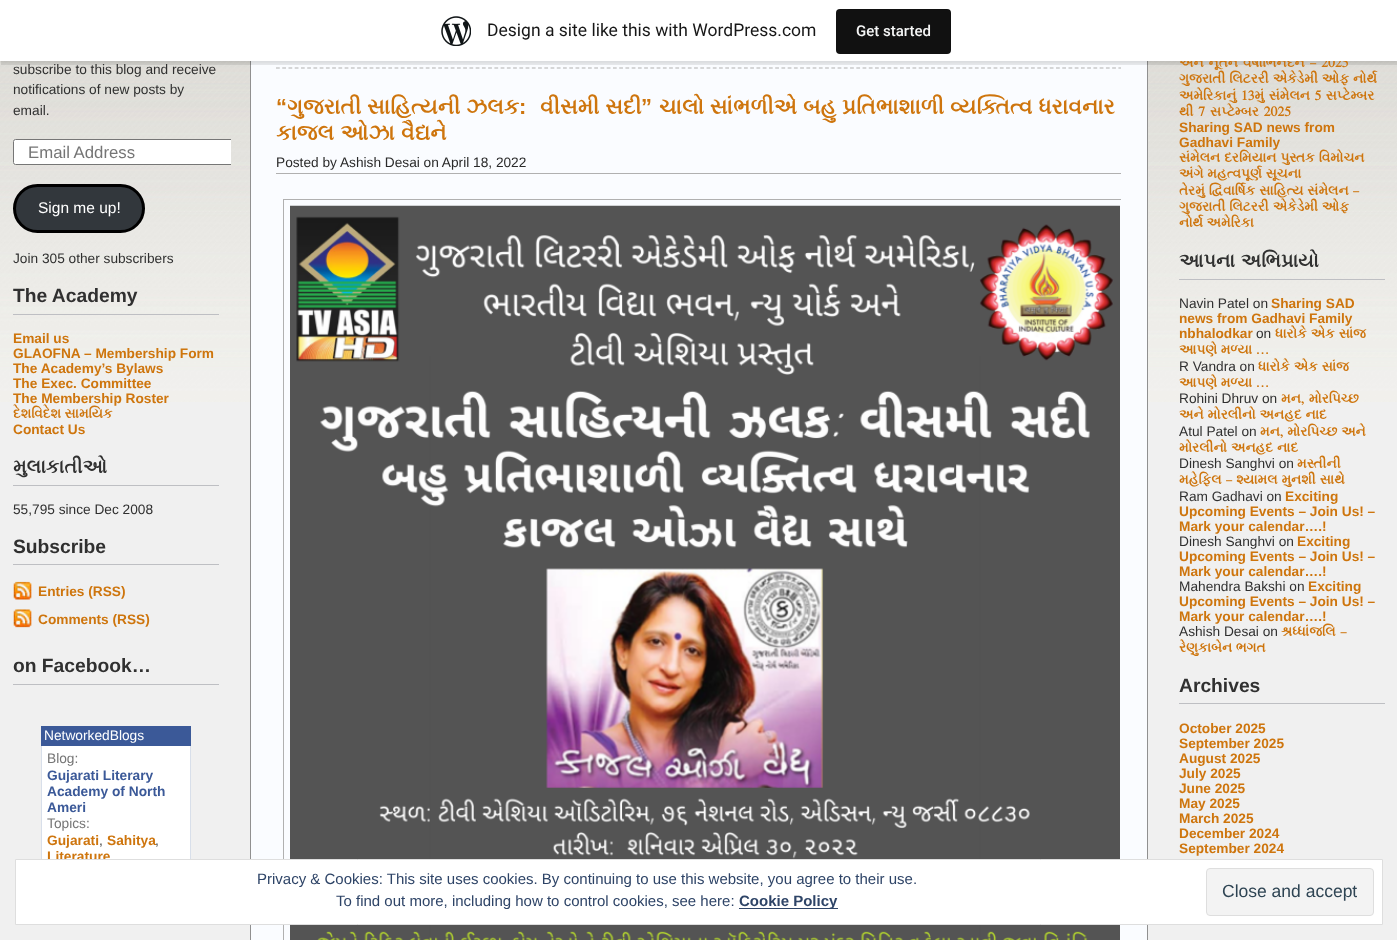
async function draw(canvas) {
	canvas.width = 1397;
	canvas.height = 940;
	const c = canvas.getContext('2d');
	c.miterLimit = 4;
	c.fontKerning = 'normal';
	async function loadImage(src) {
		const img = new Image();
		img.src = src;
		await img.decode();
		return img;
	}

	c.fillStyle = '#f0f0f0';
	c.fillRect(0, 0, 1397, 940);
	c.drawImage(await loadImage('img2.png'), 0, 61, 1397, 341);
	c.fillStyle = '#fafcff';
	c.fillRect(251, 61, 896, 879);
	c.strokeStyle = '#909090';
	c.strokeRect(250.5, -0.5, 897, 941);
	c.fillStyle = '#0000000d';
	c.filter = 'blur(1px)';
	c.beginPath();
	c.rect(0, 1, 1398, 62);
	c.fill();
	c.filter = 'none';
	c.fillStyle = '#00000014';
	c.beginPath();
	c.moveTo(1, 61);
	c.lineTo(1, 65);
	c.lineTo(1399, 65);
	c.lineTo(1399, 4);
	c.lineTo(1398, 4);
	c.lineTo(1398, 61);
	c.closePath();
	c.fill();
	c.wordSpacing = '1.5px';
	c.font = 'bold 13.7px FreeSerif';
	c.fillStyle = '#ce750d';
	c.fillText('અને નૂતન વર્ષાભિનંદન – 2025', 1179, 67);
	c.fillStyle = '#fff';
	c.fillRect(0, 0, 1397, 61);
	c.drawImage(await loadImage('img1.png'), 441, 16, 30, 30);
	c.wordSpacing = '0px';
	c.font = '17.5px Roboto';
	c.fillStyle = '#171717';
	c.fillText('Design a site like this with WordPress.com', 487, 36);
	c.fillStyle = '#111';
	c.beginPath();
	c.roundRect(836, 9, 115, 45, 4);
	c.fill();
	c.font = '500 15px Roboto';
	c.fillStyle = '#f6f7f7';
	c.fillText('Get started', 856, 36);
	c.font = '13.7px Liberation Sans';
	c.fillStyle = '#303030';
	for (const [text, x, y] of [
		['subscribe to this blog and receive', 13, 74],
		['notifications of new posts by', 13, 94],
		['email.', 13, 115],
	]) {
		c.fillText(text, x, y);
	}
	c.fillStyle = '#fff';
	c.beginPath();
	c.roundRect(13, 139, 218, 26, [2.5, 0, 0, 2.5]);
	c.fill();
	c.save();
	c.beginPath();
	c.rect(0, 0, 231, 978);
	c.clip();
	c.beginPath();
	c.roundRect(13.5, 139.5, 225, 25, 2);
	c.strokeStyle = '#767676';
	c.stroke();
	c.restore();
	c.font = '16.75px Liberation Sans';
	c.fillStyle = '#757575';
	c.fillText('Email Address', 28, 158);
	c.fillStyle = '#32373c';
	c.beginPath();
	c.roundRect(14.5, 185.5, 129, 46, 23);
	c.fill();
	c.strokeStyle = '#000';
	c.lineWidth = 3;
	c.stroke();
	c.font = '15.5px Liberation Sans';
	c.fillStyle = '#fff';
	c.fillText('Sign me up!', 38, 213);
	c.font = '13.7px Liberation Sans';
	c.fillStyle = '#303030';
	c.fillText('Join 305 other subscribers', 13, 263);
	c.fillStyle = '#bebfc3';
	c.fillRect(13, 314, 206, 1);
	c.font = 'bold 19.25px Liberation Sans';
	c.fillStyle = '#303030';
	c.fillText('The Academy', 13, 302);
	c.font = 'bold 13.7px Liberation Sans';
	c.fillStyle = '#ce750d';
	for (const [text, x, y] of [
		['Email us', 13, 343],
		['GLAOFNA – Membership Form', 13, 358],
		['The Academy’s Bylaws', 13, 373],
		['The Exec. Committee', 13, 388],
		['The Membership Roster', 13, 403],
	]) {
		c.fillText(text, x, y);
	}
	c.font = 'bold 13.7px FreeSerif';
	c.fillText('દેશવિદેશ સામયિક', 13, 418);
	c.font = 'bold 13.7px Liberation Sans';
	c.fillText('Contact Us', 13, 434);
	c.fillStyle = '#bebfc3';
	c.fillRect(13, 485, 206, 1);
	c.font = 'bold 19.25px FreeSerif';
	c.fillStyle = '#303030';
	c.fillText('મુલાકાતીઓ', 13, 473);
	c.font = '13.7px Liberation Sans';
	c.fillText('55,795 since Dec 2008', 13, 514);
	c.fillStyle = '#bebfc3';
	c.fillRect(13, 564, 206, 1);
	c.font = 'bold 19.25px Liberation Sans';
	c.fillStyle = '#303030';
	c.fillText('Subscribe', 13, 553);
	c.drawImage(await loadImage('img3.png'), 13, 581, 19, 19);
	c.font = 'bold 13.7px Liberation Sans';
	c.fillStyle = '#ce750d';
	c.fillText('Entries (RSS)', 38, 596);
	c.drawImage(await loadImage('img4.png'), 13, 609, 19, 19);
	c.fillText('Comments (RSS)', 38, 624);
	c.fillStyle = '#bebfc3';
	c.fillRect(13, 684, 206, 1);
	c.font = 'bold 19.25px Liberation Sans';
	c.fillStyle = '#303030';
	c.fillText('on Facebook…', 13, 672);
	c.fillStyle = '#3b5998';
	c.fillRect(41, 726, 150, 20);
	c.font = '13.75px Liberation Sans';
	c.fillStyle = '#fff';
	c.fillText('NetworkedBlogs', 44, 740);
	for (const [x, y, w, h, color] of [
		[42, 746, 148, 113, '#fff'],
		[190, 746, 1, 113, '#d8dfea'],
		[41, 746, 1, 113, '#d8dfea'],
	]) {
		c.fillStyle = color;
		c.fillRect(x, y, w, h);
	}
	c.fillStyle = '#757575';
	c.fillText('Blog:', 47, 763);
	c.font = 'bold 13.75px Liberation Sans';
	c.fillStyle = '#3b5998';
	for (const [text, x, y] of [
		['Gujarati Literary', 47, 780],
		['Academy of North', 47, 796],
		['Ameri', 47, 812],
	]) {
		c.fillText(text, x, y);
	}
	c.font = '13.75px Liberation Sans';
	c.fillStyle = '#757575';
	c.fillText('Topics:', 47, 828);
	c.font = 'bold 13.75px Liberation Sans';
	c.fillStyle = '#ce750d';
	c.fillText('Gujarati', 47, 845);
	c.font = '13.75px Liberation Sans';
	c.fillStyle = '#444';
	c.fillText(',', 99, 845);
	c.font = 'bold 13.75px Liberation Sans';
	c.fillStyle = '#ce750d';
	c.fillText('Sahitya', 107, 845);
	c.font = '13.75px Liberation Sans';
	c.fillStyle = '#444';
	c.fillText(',', 155, 845);
	c.font = 'bold 13.75px Liberation Sans';
	c.fillStyle = '#ce750d';
	c.fillText('Literature', 47, 861);
	c.beginPath();
	c.moveTo(276, 68);
	c.lineTo(1121, 68);
	c.strokeStyle = '#b0b0b0';
	c.lineWidth = 1.2;
	c.setLineDash([3.75, 2.49]);
	c.stroke();
	c.font = 'bold 21.9px Liberation Sans';
	c.fillText('“', 276, 114);
	c.wordSpacing = '0.5px';
	c.font = 'bold 21.9px FreeSerif';
	for (const [text, x, y] of [
		['ગુજરાતી સાહિત્યની ઝલક', 287, 114],
		['વીસમી સદી', 540, 114],
		['ચાલો સાંભળીએ બહુ પ્રતિભાશાળી વ્યક્તિત્વ ધરાવનાર', 659, 114],
	]) {
		c.fillText(text, x, y);
	}
	c.wordSpacing = '0px';
	c.font = 'bold 21.9px Liberation Sans';
	c.fillText(':', 519, 114);
	c.fillText('”', 641, 114);
	c.wordSpacing = '1px';
	c.font = 'bold 21.9px FreeSerif';
	c.fillText('કાજલ ઓઝા', 276, 140);
	c.wordSpacing = '0px';
	c.fillText('વૈદ્યને', 401, 140);
	c.fillStyle = '#b0b0b0';
	c.fillRect(276, 173, 845, 1);
	c.font = '13.7px Liberation Sans';
	c.fillStyle = '#2a2a2a';
	c.fillText('Posted by Ashish Desai on April 18, 2022', 276, 167);
	c.save();
	c.beginPath();
	c.rect(276, 193, 845, 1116);
	c.clip();
	c.lineWidth = 1;
	c.setLineDash([]);
	c.strokeRect(283.5, 199.5, 844, 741);
	c.restore();
	c.drawImage(await loadImage('img5.png'), 290, 205, 830, 735);
	c.wordSpacing = '0.5px';
	c.font = 'bold 13.7px FreeSerif';
	c.fillStyle = '#ce750d';
	c.fillText('ગુજરાતી લિટરરી એકેડેમી ઓફ નોર્થ', 1179, 83);
	c.wordSpacing = '1px';
	c.fillText('અમેરિકાનું 13મું સંમેલન 5 સપ્ટેમ્બર', 1179, 100);
	c.wordSpacing = '1.5px';
	c.fillText('થી 7 સપ્ટેમ્બર 2025', 1179, 116);
	c.wordSpacing = '0px';
	c.font = 'bold 13.7px Liberation Sans';
	c.fillText('Sharing SAD news from', 1179, 132);
	c.fillText('Gadhavi Family', 1179, 147);
	c.wordSpacing = '0.5px';
	c.font = 'bold 13.7px FreeSerif';
	for (const [text, x, y] of [
		['સંમેલન દરમિયાન પુસ્તક વિમોચન', 1179, 162],
		['અંગે મહત્વપૂર્ણ સૂચના', 1179, 178],
		['તેરમું દ્વિવાર્ષિક સાહિત્ય સંમેલન –', 1179, 195],
		['ગુજરાતી લિટરરી એકેડેમી ઓફ', 1179, 211],
	]) {
		c.fillText(text, x, y);
	}
	c.wordSpacing = '0px';
	c.fillText('નોર્થ અમેરિકા', 1179, 227);
	c.fillStyle = '#bebfc3';
	c.fillRect(1179, 279, 206, 1);
	c.wordSpacing = '1px';
	c.font = 'bold 19.25px FreeSerif';
	c.fillStyle = '#303030';
	c.fillText('આપના અભિપ્રાયો', 1179, 267);
	c.wordSpacing = '0px';
	c.font = '13.7px Liberation Sans';
	c.fillText('Navin Patel on', 1179, 308);
	c.font = 'bold 13.7px Liberation Sans';
	c.fillStyle = '#ce750d';
	for (const [text, x, y] of [
		['Sharing SAD', 1271, 308],
		['news from Gadhavi Family', 1179, 323],
		['nbhalodkar', 1179, 338],
	]) {
		c.fillText(text, x, y);
	}
	c.font = '13.7px Liberation Sans';
	c.fillStyle = '#303030';
	c.fillText('on', 1256, 338);
	c.wordSpacing = '0.5px';
	c.font = 'bold 13.7px FreeSerif';
	c.fillStyle = '#ce750d';
	c.fillText('ધારોકે એક સાંજ', 1275, 338);
	c.wordSpacing = '0px';
	c.fillText('આપણે મળ્યા …', 1179, 354);
	c.font = '13.7px Liberation Sans';
	c.fillStyle = '#303030';
	c.fillText('R Vandra on', 1179, 371);
	c.wordSpacing = '0.5px';
	c.font = 'bold 13.7px FreeSerif';
	c.fillStyle = '#ce750d';
	c.fillText('ધારોકે એક સાંજ', 1258, 371);
	c.wordSpacing = '0px';
	c.fillText('આપણે મળ્યા …', 1179, 387);
	c.font = '13.7px Liberation Sans';
	c.fillStyle = '#303030';
	c.fillText('Rohini Dhruv on', 1179, 403);
	c.wordSpacing = '1px';
	c.font = 'bold 13.7px FreeSerif';
	c.fillStyle = '#ce750d';
	c.fillText('મન, મોરપિચ્છ', 1281, 403);
	c.wordSpacing = '0.5px';
	c.fillText('અને મોરલીનો અનહદ નાદ', 1179, 419);
	c.wordSpacing = '0px';
	c.font = '13.7px Liberation Sans';
	c.fillStyle = '#303030';
	c.fillText('Atul Patel on', 1179, 436);
	c.wordSpacing = '0.5px';
	c.font = 'bold 13.7px FreeSerif';
	c.fillStyle = '#ce750d';
	c.fillText('મન, મોરપિચ્છ અને', 1260, 436);
	c.fillText('મોરલીનો અનહદ નાદ', 1179, 452);
	c.wordSpacing = '0px';
	c.font = '13.7px Liberation Sans';
	c.fillStyle = '#303030';
	c.fillText('Dinesh Sanghvi on', 1179, 468);
	c.font = 'bold 13.7px FreeSerif';
	c.fillStyle = '#ce750d';
	c.fillText('મસ્તીની', 1297, 468);
	c.wordSpacing = '0.5px';
	c.fillText('મહેફિલ – શ્યામલ મુનશી સાથે', 1179, 484);
	c.wordSpacing = '0px';
	c.font = '13.7px Liberation Sans';
	c.fillStyle = '#303030';
	c.fillText('Ram Gadhavi on', 1179, 501);
	c.font = 'bold 13.7px Liberation Sans';
	c.fillStyle = '#ce750d';
	for (const [text, x, y] of [
		['Exciting', 1285, 501],
		['Upcoming Events – Join Us! –', 1179, 516],
		['Mark your calendar….!', 1179, 531],
	]) {
		c.fillText(text, x, y);
	}
	c.font = '13.7px Liberation Sans';
	c.fillStyle = '#303030';
	c.fillText('Dinesh Sanghvi on', 1179, 546);
	c.font = 'bold 13.7px Liberation Sans';
	c.fillStyle = '#ce750d';
	for (const [text, x, y] of [
		['Exciting', 1297, 546],
		['Upcoming Events – Join Us! –', 1179, 561],
		['Mark your calendar….!', 1179, 576],
	]) {
		c.fillText(text, x, y);
	}
	c.font = '13.7px Liberation Sans';
	c.fillStyle = '#303030';
	c.fillText('Mahendra Bakshi on', 1179, 591);
	c.font = 'bold 13.7px Liberation Sans';
	c.fillStyle = '#ce750d';
	for (const [text, x, y] of [
		['Exciting', 1308, 591],
		['Upcoming Events – Join Us! –', 1179, 606],
		['Mark your calendar….!', 1179, 621],
	]) {
		c.fillText(text, x, y);
	}
	c.font = '13.7px Liberation Sans';
	c.fillStyle = '#303030';
	c.fillText('Ashish Desai on', 1179, 636);
	c.wordSpacing = '1px';
	c.font = 'bold 13.7px FreeSerif';
	c.fillStyle = '#ce750d';
	c.fillText('શ્રધ્ધાંજલિ –', 1281, 636);
	c.wordSpacing = '0px';
	c.fillText('રેણુકાબેન ભગત', 1179, 652);
	c.fillStyle = '#bebfc3';
	c.fillRect(1179, 703, 206, 1);
	c.font = 'bold 19.25px Liberation Sans';
	c.fillStyle = '#303030';
	c.fillText('Archives', 1179, 692);
	c.font = 'bold 13.7px Liberation Sans';
	c.fillStyle = '#ce750d';
	for (const [text, x, y] of [
		['October 2025', 1179, 733],
		['September 2025', 1179, 748],
		['August 2025', 1179, 763],
		['July 2025', 1179, 778],
		['June 2025', 1179, 793],
		['May 2025', 1179, 808],
		['March 2025', 1179, 823],
		['December 2024', 1179, 838],
		['September 2024', 1179, 853],
	]) {
		c.fillText(text, x, y);
	}
	c.fillStyle = '#fff';
	c.beginPath();
	c.rect(15.5, 859.5, 1367, 65);
	c.fill();
	c.strokeStyle = '#dedede';
	c.lineWidth = 1;
	c.setLineDash([]);
	c.stroke();
	c.font = '15px Liberation Sans';
	c.fillStyle = '#2e4467';
	c.fillText('Privacy & Cookies: This site uses cookies. By continuing to use this website, you agree to their use.', 257, 884);
	c.fillStyle = '#f3f3f3';
	c.beginPath();
	c.roundRect(1206.5, 868.5, 167, 47, 3.5);
	c.fill();
	c.stroke();
	c.font = '17.5px Liberation Sans';
	c.fillStyle = '#2e4453';
	c.fillText('Close and accept', 1222, 897);
	c.font = '15px Liberation Sans';
	c.fillStyle = '#2e4467';
	c.fillText('To find out more, including how to control cookies, see here:', 336, 906);
	c.fillRect(739, 908, 99, 1);
	c.font = 'bold 15px Liberation Sans';
	c.fillText('Cookie Policy', 739, 906);
}

draw(document.querySelector('canvas'));
